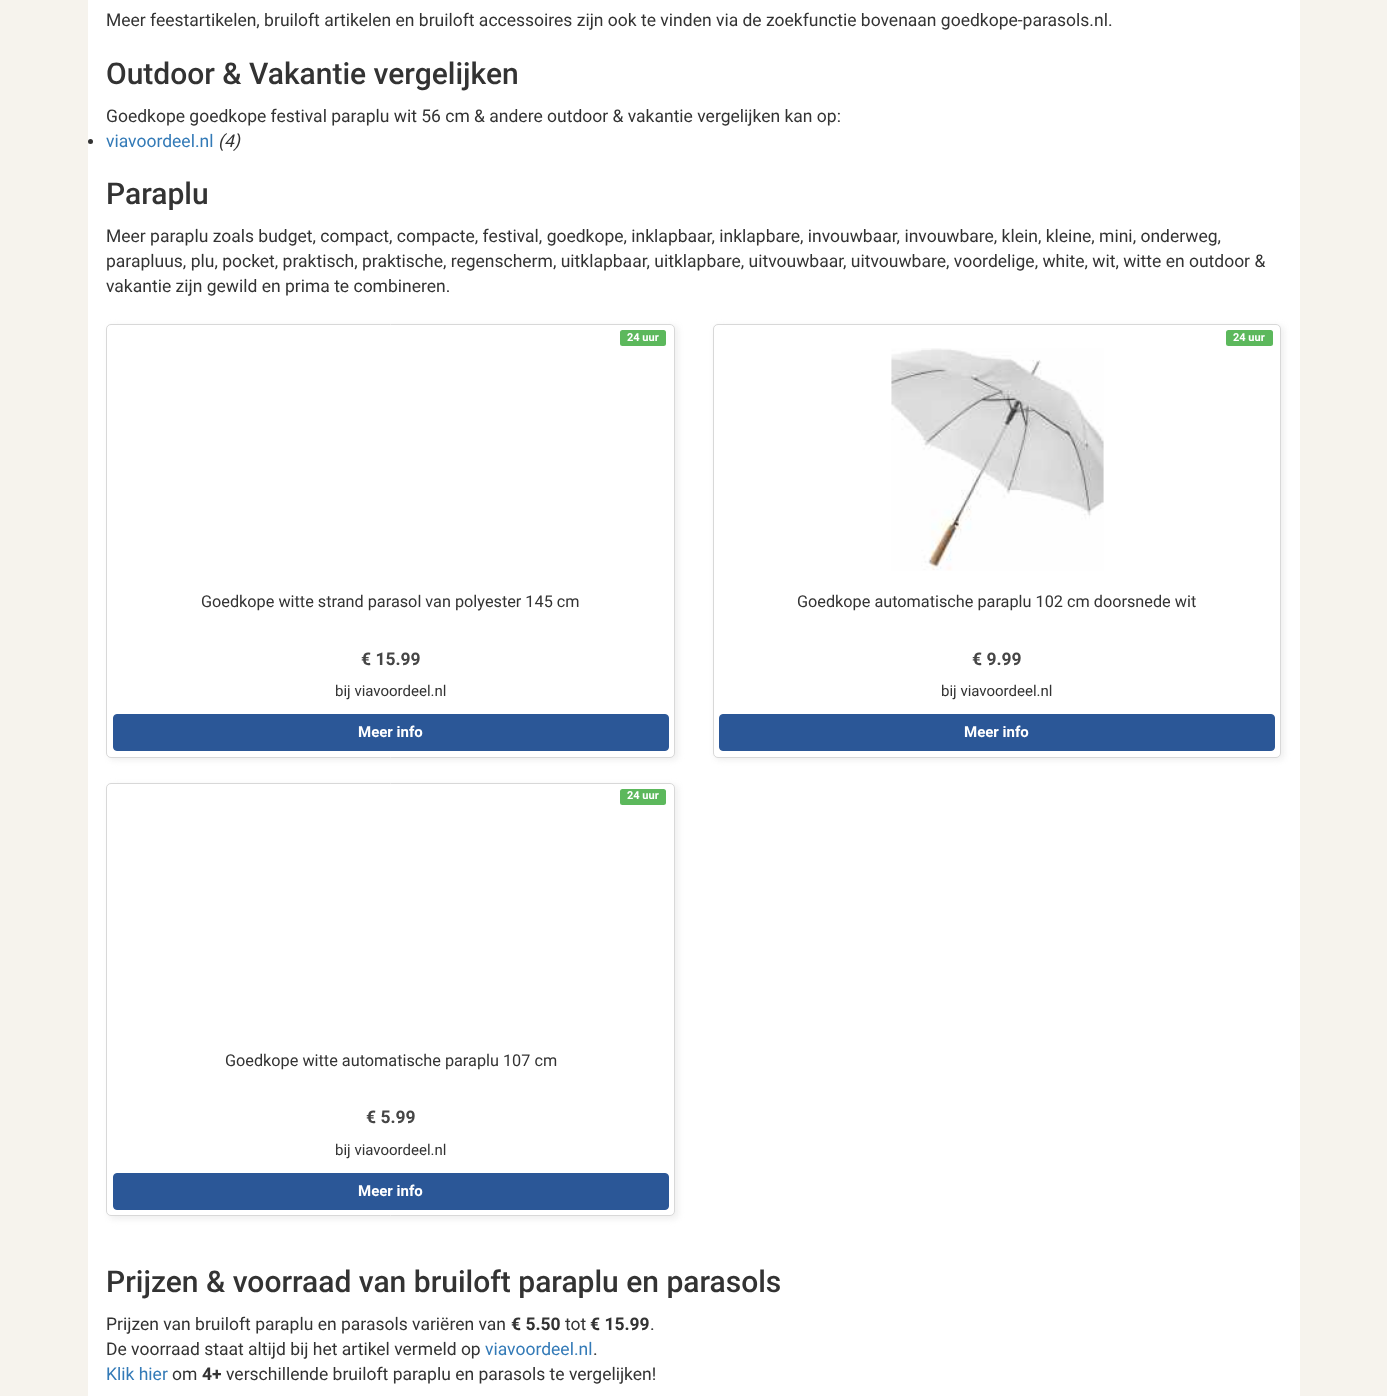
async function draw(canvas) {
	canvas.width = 1387;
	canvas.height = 1396;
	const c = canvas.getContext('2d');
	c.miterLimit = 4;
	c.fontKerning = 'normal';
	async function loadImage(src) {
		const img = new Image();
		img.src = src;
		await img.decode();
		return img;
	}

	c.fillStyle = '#f6f3ed';
	c.fillRect(0, 0, 1387, 1396);
	c.fillStyle = '#fff';
	c.fillRect(88, 0, 1212, 1396);
	c.font = '17.5px Roboto';
	c.fillStyle = '#333';
	c.fillText('Meer feestartikelen, bruiloft artikelen en bruiloft accessoires zijn ook te vinden via de zoekfunctie bovenaan goedkope-parasols.nl.', 106, 26);
	c.font = '500 30px Roboto';
	c.fillText('Outdoor & Vakantie vergelijken', 106, 84);
	c.font = '17.5px Roboto';
	c.fillText('Goedkope goedkope festival paraplu wit 56 cm & andere outdoor & vakantie vergelijken kan op:', 106, 122);
	c.beginPath();
	c.arc(90.5, 141.5, 2.5, 0, 2 * Math.PI);
	c.fill();
	c.fillStyle = '#337ab7';
	c.fillText('viavoordeel.nl', 106, 147);
	c.font = 'italic 17.5px Roboto';
	c.fillStyle = '#333';
	c.fillText('(4)', 218, 147);
	c.font = '500 30px Roboto';
	c.fillText('Paraplu', 106, 204);
	c.font = '17.5px Roboto';
	for (const [text, x, y] of [
		['Meer paraplu zoals budget, compact, compacte, festival, goedkope, inklapbaar, inklapbare, invouwbaar, invouwbare, klein, kleine, mini, onderweg,', 106, 242],
		['parapluus, plu, pocket, praktisch, praktische, regenscherm, uitklapbaar, uitklapbare, uitvouwbaar, uitvouwbare, voordelige, white, wit, witte en outdoor &', 106, 267],
		['vakantie zijn gewild en prima te combineren.', 106, 292],
	]) {
		c.fillText(text, x, y);
	}
	c.fillStyle = '#eee';
	c.filter = 'blur(3px)';
	c.beginPath();
	c.roundRect(109, 326, 569, 434, 5);
	c.fill();
	c.filter = 'none';
	c.fillStyle = '#fff';
	c.beginPath();
	c.roundRect(106.5, 324.5, 568, 433, 4.5);
	c.fill();
	c.strokeStyle = '#d8d8d8';
	c.stroke();
	c.fillStyle = '#5cb85c';
	c.beginPath();
	c.roundRect(620, 330, 46, 16, 2.5);
	c.fill();
	c.font = 'bold 11px Roboto';
	c.fillStyle = '#fff';
	c.fillText('24 uur', 627, 341);
	c.font = '16.25px Roboto';
	c.fillStyle = '#333';
	c.fillText('Goedkope witte strand parasol van polyester 145 cm', 201, 607);
	c.font = 'bold 17.5px Roboto';
	c.fillStyle = '#464646';
	c.fillText('€ 15.99', 361, 665);
	c.font = '15px Roboto';
	c.fillStyle = '#333';
	c.fillText('bij viavoordeel.nl', 335, 696);
	c.fillStyle = '#2b5797';
	c.beginPath();
	c.roundRect(113.5, 714.5, 555, 36, 3.5);
	c.fill();
	c.strokeStyle = '#2b5797';
	c.stroke();
	c.font = 'bold 15px Roboto';
	c.fillStyle = '#fff';
	c.fillText('Meer info', 358, 737);
	c.fillStyle = '#eee';
	c.filter = 'blur(3px)';
	c.beginPath();
	c.roundRect(715, 326, 569, 434, 5);
	c.fill();
	c.filter = 'none';
	c.fillStyle = '#fff';
	c.beginPath();
	c.roundRect(713.5, 324.5, 567, 433, 4.5);
	c.fill();
	c.strokeStyle = '#d8d8d8';
	c.stroke();
	c.fillStyle = '#5cb85c';
	c.beginPath();
	c.roundRect(1226, 330, 47, 16, 2.5);
	c.fill();
	c.font = 'bold 11px Roboto';
	c.fillStyle = '#fff';
	c.fillText('24 uur', 1233, 341);
	c.drawImage(await loadImage('img1.png'), 891, 348, 213, 223);
	c.font = '16.25px Roboto';
	c.fillStyle = '#333';
	c.fillText('Goedkope automatische paraplu 102 cm doorsnede wit', 797, 607);
	c.font = 'bold 17.5px Roboto';
	c.fillStyle = '#464646';
	c.fillText('€ 9.99', 972, 665);
	c.font = '15px Roboto';
	c.fillStyle = '#333';
	c.fillText('bij viavoordeel.nl', 941, 696);
	c.fillStyle = '#2b5797';
	c.beginPath();
	c.roundRect(719.5, 714.5, 555, 36, 3.5);
	c.fill();
	c.strokeStyle = '#2b5797';
	c.stroke();
	c.font = 'bold 15px Roboto';
	c.fillStyle = '#fff';
	c.fillText('Meer info', 964, 737);
	c.fillStyle = '#eee';
	c.filter = 'blur(3px)';
	c.beginPath();
	c.roundRect(109, 785, 569, 434, 5);
	c.fill();
	c.filter = 'none';
	c.fillStyle = '#fff';
	c.beginPath();
	c.roundRect(106.5, 783.5, 568, 432, 4.5);
	c.fill();
	c.strokeStyle = '#d8d8d8';
	c.stroke();
	c.fillStyle = '#5cb85c';
	c.beginPath();
	c.roundRect(620, 789, 46, 16, 2.5);
	c.fill();
	c.font = 'bold 11px Roboto';
	c.fillStyle = '#fff';
	c.fillText('24 uur', 627, 799);
	c.font = '16.25px Roboto';
	c.fillStyle = '#333';
	c.fillText('Goedkope witte automatische paraplu 107 cm', 225, 1066);
	c.font = 'bold 17.5px Roboto';
	c.fillStyle = '#464646';
	c.fillText('€ 5.99', 366, 1123);
	c.font = '15px Roboto';
	c.fillStyle = '#333';
	c.fillText('bij viavoordeel.nl', 335, 1155);
	c.fillStyle = '#2b5797';
	c.beginPath();
	c.roundRect(113.5, 1173.5, 555, 36, 3.5);
	c.fill();
	c.strokeStyle = '#2b5797';
	c.stroke();
	c.font = 'bold 15px Roboto';
	c.fillStyle = '#fff';
	c.fillText('Meer info', 358, 1196);
	c.font = '500 30px Roboto';
	c.fillStyle = '#333';
	c.fillText('Prijzen & voorraad van bruiloft paraplu en parasols', 106, 1292);
	c.font = '17.5px Roboto';
	c.fillText('Prijzen van bruiloft paraplu en parasols variëren van', 106, 1330);
	c.font = 'bold 17.5px Roboto';
	c.fillText('€ 5.50', 511, 1330);
	c.font = '17.5px Roboto';
	c.fillText('tot', 565, 1330);
	c.font = 'bold 17.5px Roboto';
	c.fillText('€ 15.99', 590, 1330);
	c.font = '17.5px Roboto';
	c.fillText('.', 650, 1330);
	c.fillText('De voorraad staat altijd bij het artikel vermeld op', 106, 1355);
	c.fillStyle = '#337ab7';
	c.fillText('viavoordeel.nl', 485, 1355);
	c.fillStyle = '#333';
	c.fillText('.', 593, 1355);
	c.fillStyle = '#337ab7';
	c.fillText('Klik hier', 106, 1380);
	c.fillStyle = '#333';
	c.fillText('om', 172, 1380);
	c.font = 'bold 17.5px Roboto';
	c.fillText('4+', 202, 1380);
	c.font = '17.5px Roboto';
	c.fillText('verschillende bruiloft paraplu en parasols te vergelijken!', 226, 1380);
}

draw(document.querySelector('canvas'));
